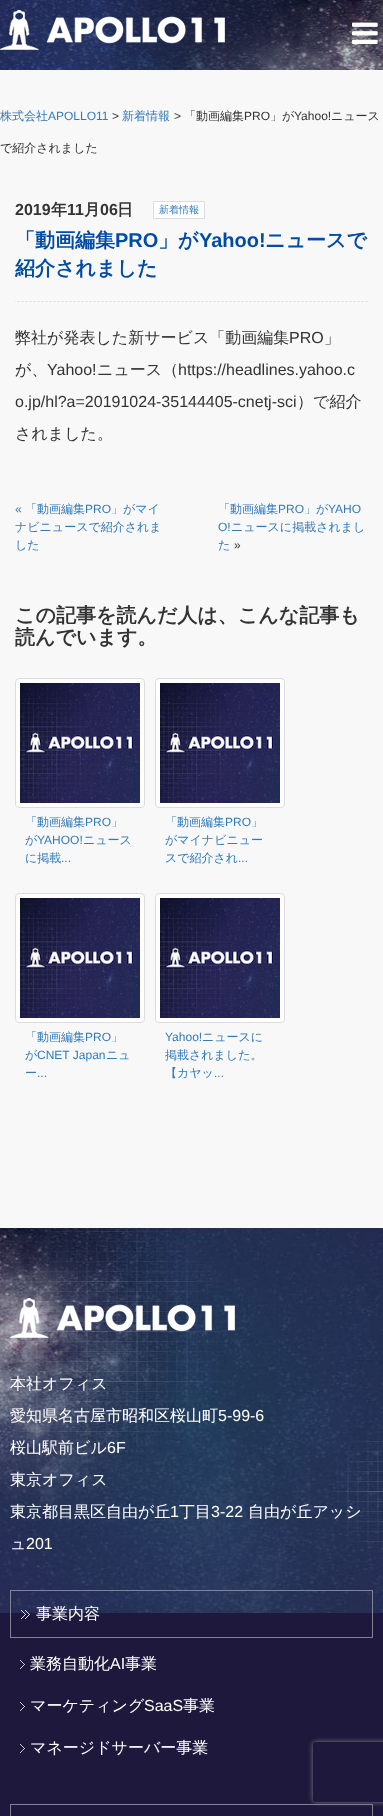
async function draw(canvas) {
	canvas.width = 383;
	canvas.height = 1816;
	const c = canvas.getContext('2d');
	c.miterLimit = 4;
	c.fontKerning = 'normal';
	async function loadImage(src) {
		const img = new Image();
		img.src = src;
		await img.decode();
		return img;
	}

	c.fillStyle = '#f8f8f8';
	c.fillRect(0, 0, 383, 1816);
	c.drawImage(await loadImage('img1.png'), 0, 0, 383, 70);
	c.drawImage(await loadImage('img2.png'), 0, 10, 225, 40);
	c.drawImage(await loadImage('img3.png'), 352, 22, 26, 22);
	c.font = '500 12px WenQuanYi Zen Hei';
	c.fillStyle = '#337ab7';
	c.fillText('株式会社', 0, 120);
	c.font = '12px Liberation Sans';
	c.fillText('APOLLO11', 48, 120);
	c.fillStyle = '#333';
	c.fillText('>', 112, 120);
	c.font = '500 12px WenQuanYi Zen Hei';
	c.fillStyle = '#337ab7';
	c.fillText('新着情報', 122, 120);
	c.font = '12px Liberation Sans';
	c.fillStyle = '#333';
	c.fillText('>', 174, 120);
	c.font = '500 12px WenQuanYi Zen Hei';
	c.fillText('「動画編集', 184, 120);
	c.font = '12px Liberation Sans';
	c.fillText('PRO', 244, 120);
	c.font = '500 12px WenQuanYi Zen Hei';
	c.fillText('」が', 270, 120);
	c.font = '12px Liberation Sans';
	c.fillText('Yahoo!', 294, 120);
	c.font = '500 12px WenQuanYi Zen Hei';
	c.fillText('ニュース', 331, 120);
	c.fillText('で紹介されました', 0, 152);
	c.font = 'bold 16px Liberation Sans';
	c.fillText('2019', 15, 215);
	c.font = 'bold 16px WenQuanYi Zen Hei';
	c.fillText('年', 51, 215);
	c.font = 'bold 16px Liberation Sans';
	c.fillText('11', 67, 215);
	c.font = 'bold 16px WenQuanYi Zen Hei';
	c.fillText('月', 84, 215);
	c.font = 'bold 16px Liberation Sans';
	c.fillText('06', 100, 215);
	c.font = 'bold 16px WenQuanYi Zen Hei';
	c.fillText('日', 117, 215);
	c.fillStyle = '#fff';
	c.beginPath();
	c.rect(153.5, 201.5, 51, 17);
	c.fill();
	c.strokeStyle = '#ddd';
	c.stroke();
	c.font = '500 10px WenQuanYi Zen Hei';
	c.fillStyle = '#337ab7';
	c.fillText('新着情報', 159, 213);
	c.drawImage(await loadImage('img4.png'), 15, 301, 353, 1);
	c.font = 'bold 20px WenQuanYi Zen Hei';
	c.fillStyle = '#004ba3';
	c.fillText('「動画編集', 15, 247);
	c.font = 'bold 20px Liberation Sans';
	c.fillText('PRO', 115, 247);
	c.font = 'bold 20px WenQuanYi Zen Hei';
	c.fillText('」が', 158, 247);
	c.font = 'bold 20px Liberation Sans';
	c.fillText('Yahoo!', 199, 247);
	c.font = 'bold 20px WenQuanYi Zen Hei';
	c.fillText('ニュースで', 265, 247);
	c.fillText('紹介されました', 15, 275);
	c.font = '500 16px WenQuanYi Zen Hei';
	c.fillStyle = '#333';
	c.fillText('弊社が発表した新サービス「動画編集', 15, 343);
	c.font = '16px Liberation Sans';
	c.fillText('PRO', 289, 343);
	c.font = '500 16px WenQuanYi Zen Hei';
	c.fillText('」', 324, 343);
	c.fillText('が、', 15, 375);
	c.font = '16px Liberation Sans';
	c.fillText('Yahoo!', 47, 375);
	c.font = '500 16px WenQuanYi Zen Hei';
	c.fillText('ニュース（', 97, 375);
	c.font = '16px Liberation Sans';
	c.fillText('https://headlines.yahoo.c', 178, 375);
	c.fillText('o.jp/hl?a=20191024-35144405-cnetj-sci', 15, 407);
	c.font = '500 16px WenQuanYi Zen Hei';
	c.fillText('）で紹介', 297, 407);
	c.fillText('されました。', 15, 439);
	c.font = '12px Liberation Sans';
	c.fillStyle = '#337ab7';
	c.fillText('«', 15, 513);
	c.font = '500 12px WenQuanYi Zen Hei';
	c.fillText('「動画編集', 25, 513);
	c.font = '12px Liberation Sans';
	c.fillText('PRO', 85, 513);
	c.font = '500 12px WenQuanYi Zen Hei';
	for (const [text, x, y] of [
		['」がマイ', 111, 513],
		['ナビニュースで紹介されま', 15, 531],
		['した', 15, 549],
		['「動画編集', 218, 513],
	]) {
		c.fillText(text, x, y);
	}
	c.font = '12px Liberation Sans';
	c.fillText('PRO', 278, 513);
	c.font = '500 12px WenQuanYi Zen Hei';
	c.fillText('」が', 304, 513);
	c.font = '12px Liberation Sans';
	c.fillText('YAHO', 328, 513);
	c.fillText('O!', 218, 531);
	c.font = '500 12px WenQuanYi Zen Hei';
	c.fillText('ニュースに掲載されまし', 231, 531);
	c.fillText('た', 218, 549);
	c.font = '12px Liberation Sans';
	c.fillStyle = '#333';
	c.fillText('»', 234, 549);
	c.font = 'bold 20px WenQuanYi Zen Hei';
	c.fillText('この記事を読んだ人は、こんな記事も', 15, 622);
	c.fillText('読んでいます。', 15, 644);
	c.fillStyle = '#fff';
	c.beginPath();
	c.roundRect(15.5, 678.5, 129, 129, 3.5);
	c.fill();
	c.stroke();
	c.drawImage(await loadImage('img5.png'), 20, 683, 120, 120);
	c.font = '500 12px WenQuanYi Zen Hei';
	c.fillStyle = '#337ab7';
	c.fillText('「動画編集', 25, 826);
	c.font = '12px Liberation Sans';
	c.fillText('PRO', 85, 826);
	c.font = '500 12px WenQuanYi Zen Hei';
	c.fillText('」', 111, 826);
	c.fillText('が', 25, 844);
	c.font = '12px Liberation Sans';
	c.fillText('YAHOO!', 37, 844);
	c.font = '500 12px WenQuanYi Zen Hei';
	c.fillText('ニュース', 83, 844);
	c.fillText('に掲載', 25, 862);
	c.font = '12px Liberation Sans';
	c.fillText('...', 61, 862);
	c.fillStyle = '#fff';
	c.beginPath();
	c.roundRect(155.5, 678.5, 129, 129, 3.5);
	c.fill();
	c.stroke();
	c.drawImage(await loadImage('img5.png'), 160, 683, 120, 120);
	c.font = '500 12px WenQuanYi Zen Hei';
	c.fillStyle = '#337ab7';
	c.fillText('「動画編集', 165, 826);
	c.font = '12px Liberation Sans';
	c.fillText('PRO', 225, 826);
	c.font = '500 12px WenQuanYi Zen Hei';
	for (const [text, x, y] of [
		['」', 251, 826],
		['がマイナビニュー', 165, 844],
		['スで紹介され', 165, 862],
	]) {
		c.fillText(text, x, y);
	}
	c.font = '12px Liberation Sans';
	c.fillText('...', 238, 862);
	c.fillStyle = '#fff';
	c.beginPath();
	c.roundRect(15.5, 893.5, 129, 129, 3.5);
	c.fill();
	c.stroke();
	c.drawImage(await loadImage('img5.png'), 20, 898, 120, 120);
	c.font = '500 12px WenQuanYi Zen Hei';
	c.fillStyle = '#337ab7';
	c.fillText('「動画編集', 25, 1041);
	c.font = '12px Liberation Sans';
	c.fillText('PRO', 85, 1041);
	c.font = '500 12px WenQuanYi Zen Hei';
	c.fillText('」', 111, 1041);
	c.fillText('が', 25, 1059);
	c.font = '12px Liberation Sans';
	c.fillText('CNET Japan', 37, 1059);
	c.font = '500 12px WenQuanYi Zen Hei';
	c.fillText('ニュ', 106, 1059);
	c.fillText('ー', 25, 1077);
	c.font = '12px Liberation Sans';
	c.fillText('...', 37, 1077);
	c.fillStyle = '#fff';
	c.beginPath();
	c.roundRect(155.5, 893.5, 129, 129, 3.5);
	c.fill();
	c.stroke();
	c.drawImage(await loadImage('img5.png'), 160, 898, 120, 120);
	c.fillStyle = '#337ab7';
	c.fillText('Yahoo!', 165, 1041);
	c.font = '500 12px WenQuanYi Zen Hei';
	for (const [text, x, y] of [
		['ニュースに', 202, 1041],
		['掲載されました。', 165, 1059],
		['【カヤッ', 165, 1077],
	]) {
		c.fillText(text, x, y);
	}
	c.font = '12px Liberation Sans';
	c.fillText('...', 214, 1077);
	c.fillStyle = '#1e183c';
	c.fillRect(0, 1613, 383, 203);
	c.drawImage(await loadImage('img6.png'), 0, 1228, 383, 385);
	c.drawImage(await loadImage('img7.png'), 10, 1298, 225, 40);
	c.font = '500 16px WenQuanYi Zen Hei';
	c.fillStyle = '#fff';
	c.fillText('本社オフィス', 10, 1389);
	c.fillText('愛知県名古屋市昭和区桜山町', 10, 1421);
	c.font = '16px Liberation Sans';
	c.fillText('5-99-6', 218, 1421);
	c.font = '500 16px WenQuanYi Zen Hei';
	c.fillText('桜山駅前ビル', 10, 1453);
	c.font = '16px Liberation Sans';
	c.fillText('6F', 107, 1453);
	c.font = '500 16px WenQuanYi Zen Hei';
	c.fillText('東京オフィス', 10, 1485);
	c.fillText('東京都目黒区自由が丘', 10, 1517);
	c.font = '16px Liberation Sans';
	c.fillText('1', 170, 1517);
	c.font = '500 16px WenQuanYi Zen Hei';
	c.fillText('丁目', 179, 1517);
	c.font = '16px Liberation Sans';
	c.fillText('3-22', 211, 1517);
	c.font = '500 16px WenQuanYi Zen Hei';
	c.fillText('自由が丘アッシ', 248, 1517);
	c.fillText('ュ', 10, 1549);
	c.font = '16px Liberation Sans';
	c.fillText('201', 26, 1549);
	c.drawImage(await loadImage('img8.png'), 21, 1610, 9, 9);
	c.strokeStyle = '#828297';
	c.strokeRect(10.5, 1590.5, 362, 47);
	c.font = '500 16px WenQuanYi Zen Hei';
	c.fillText('事業内容', 36, 1619);
	c.drawImage(await loadImage('img9.png'), 20, 1660, 5, 9);
	c.fillText('業務自動化', 30, 1669);
	c.font = '16px Liberation Sans';
	c.fillText('AI', 110, 1669);
	c.font = '500 16px WenQuanYi Zen Hei';
	c.fillText('事業', 125, 1669);
	c.drawImage(await loadImage('img9.png'), 20, 1702, 5, 9);
	c.fillText('マーケティング', 30, 1711);
	c.font = '16px Liberation Sans';
	c.fillText('SaaS', 144, 1711);
	c.font = '500 16px WenQuanYi Zen Hei';
	c.fillText('事業', 183, 1711);
	c.drawImage(await loadImage('img9.png'), 20, 1744, 5, 9);
	c.fillText('マネージドサーバー事業', 30, 1753);
	c.strokeRect(10.5, 1804.5, 362, 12);
	c.save();
	c.beginPath();
	c.moveTo(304, 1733);
	c.lineTo(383, 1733);
	c.lineTo(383, 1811);
	c.lineTo(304, 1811);
	c.closePath();
	c.moveTo(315, 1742);
	c.lineTo(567, 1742);
	c.bezierCurveTo(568, 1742, 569, 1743, 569, 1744);
	c.lineTo(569, 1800);
	c.bezierCurveTo(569, 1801, 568, 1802, 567, 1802);
	c.lineTo(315, 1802);
	c.bezierCurveTo(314, 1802, 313, 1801, 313, 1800);
	c.lineTo(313, 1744);
	c.bezierCurveTo(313, 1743, 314, 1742, 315, 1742);
	c.closePath();
	c.clip('evenodd');
	c.fillStyle = '#808080';
	c.filter = 'blur(2.5px)';
	c.beginPath();
	c.roundRect(313, 1742, 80, 60, 2);
	c.fill();
	c.filter = 'none';
	c.restore();
}

draw(document.querySelector('canvas'));
